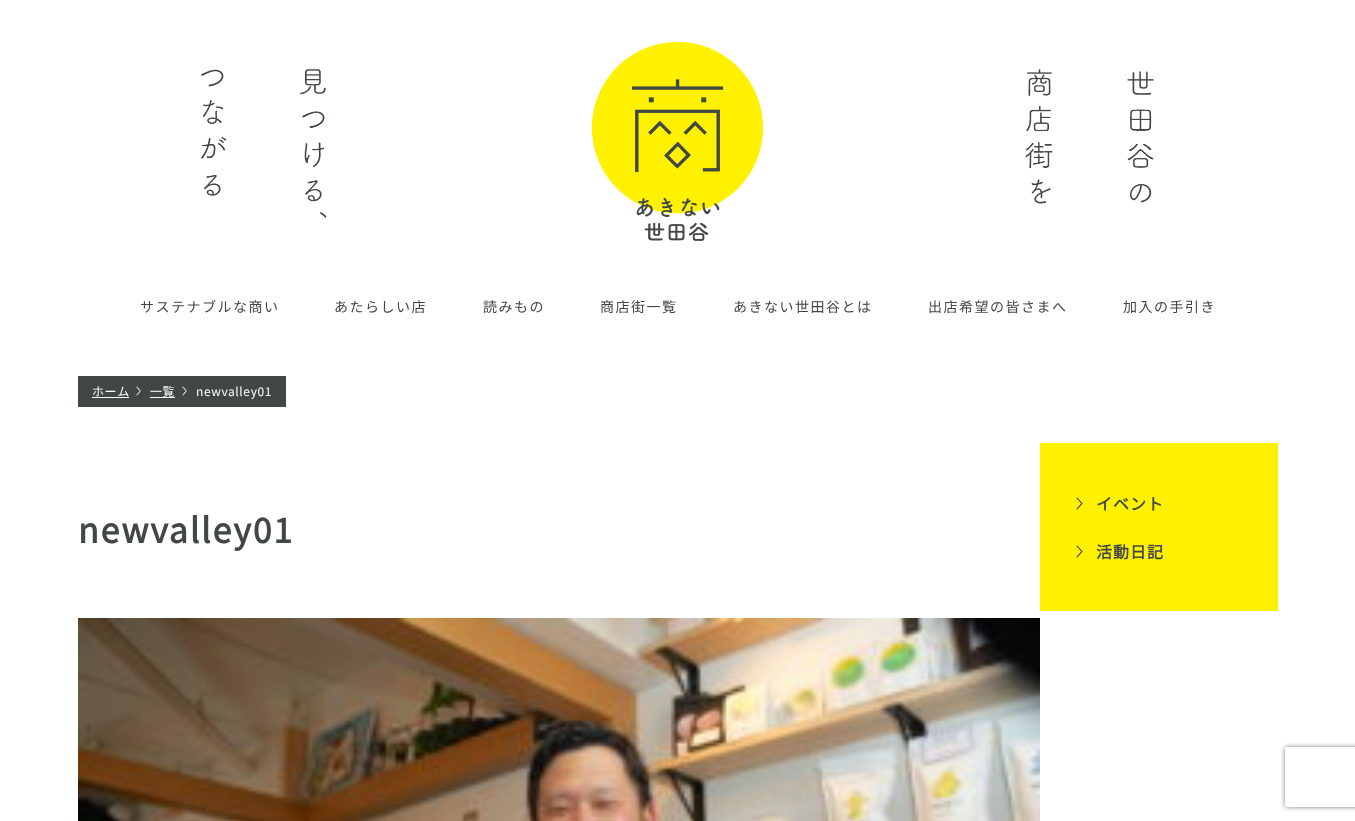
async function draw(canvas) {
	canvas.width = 1355;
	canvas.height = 821;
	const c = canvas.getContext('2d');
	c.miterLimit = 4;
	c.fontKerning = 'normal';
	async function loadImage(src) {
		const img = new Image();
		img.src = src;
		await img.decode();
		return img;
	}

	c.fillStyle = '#fff';
	c.fillRect(0, 0, 1355, 821);
	c.drawImage(await loadImage('img2.png'), 201, 69, 953, 149);
	c.drawImage(await loadImage('img1.png'), 592, 42, 171, 199);
	c.letterSpacing = '1.5px';
	c.font = '100 14px Noto Sans JP';
	c.fillStyle = '#414745';
	for (const [text, x, y] of [
		['サステナブルな商い', 140, 312],
		['あたらしい店', 334, 312],
		['読みもの', 483, 312],
		['商店街一覧', 600, 312],
		['あきない世田谷とは', 733, 312],
		['出店希望の皆さまへ', 928, 312],
		['加入の手引き', 1123, 312],
	]) {
		c.fillText(text, x, y);
	}
	c.fillRect(78, 376, 208, 31);
	c.drawImage(await loadImage('img3.png'), 136, 386, 5, 10);
	c.letterSpacing = '0.6px';
	c.font = '100 12px Noto Sans JP';
	c.fillStyle = '#fff';
	c.fillText('ホーム', 92, 396);
	c.fillRect(92, 397, 37, 1);
	c.drawImage(await loadImage('img3.png'), 182, 386, 5, 10);
	c.fillText('一覧', 150, 396);
	c.fillRect(150, 397, 25, 1);
	c.fillText('newvalley01', 196, 396);
	c.letterSpacing = '1.75px';
	c.font = 'bold 34px Noto Sans JP';
	c.fillStyle = '#414745';
	c.fillText('newvalley01', 78, 543);
	c.drawImage(await loadImage('img4.png'), 78, 618, 962, 203);
	c.fillStyle = '#fff100';
	c.fillRect(1040, 443, 238, 168);
	c.drawImage(await loadImage('img5.png'), 1076, 497, 7, 13);
	c.letterSpacing = '1px';
	c.font = 'bold 16px Noto Sans JP';
	c.fillStyle = '#414745';
	c.fillText('イベント', 1096, 510);
	c.drawImage(await loadImage('img5.png'), 1076, 545, 7, 13);
	c.fillText('活動日記', 1096, 558);
	c.save();
	c.beginPath();
	c.moveTo(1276, 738);
	c.lineTo(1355, 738);
	c.lineTo(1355, 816);
	c.lineTo(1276, 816);
	c.closePath();
	c.moveTo(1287, 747);
	c.lineTo(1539, 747);
	c.bezierCurveTo(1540, 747, 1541, 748, 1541, 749);
	c.lineTo(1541, 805);
	c.bezierCurveTo(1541, 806, 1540, 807, 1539, 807);
	c.lineTo(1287, 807);
	c.bezierCurveTo(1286, 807, 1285, 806, 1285, 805);
	c.lineTo(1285, 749);
	c.bezierCurveTo(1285, 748, 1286, 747, 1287, 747);
	c.closePath();
	c.clip('evenodd');
	c.fillStyle = '#808080';
	c.filter = 'blur(2.5px)';
	c.beginPath();
	c.roundRect(1285, 747, 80, 60, 2);
	c.fill();
	c.filter = 'none';
	c.restore();
}

draw(document.querySelector('canvas'));
